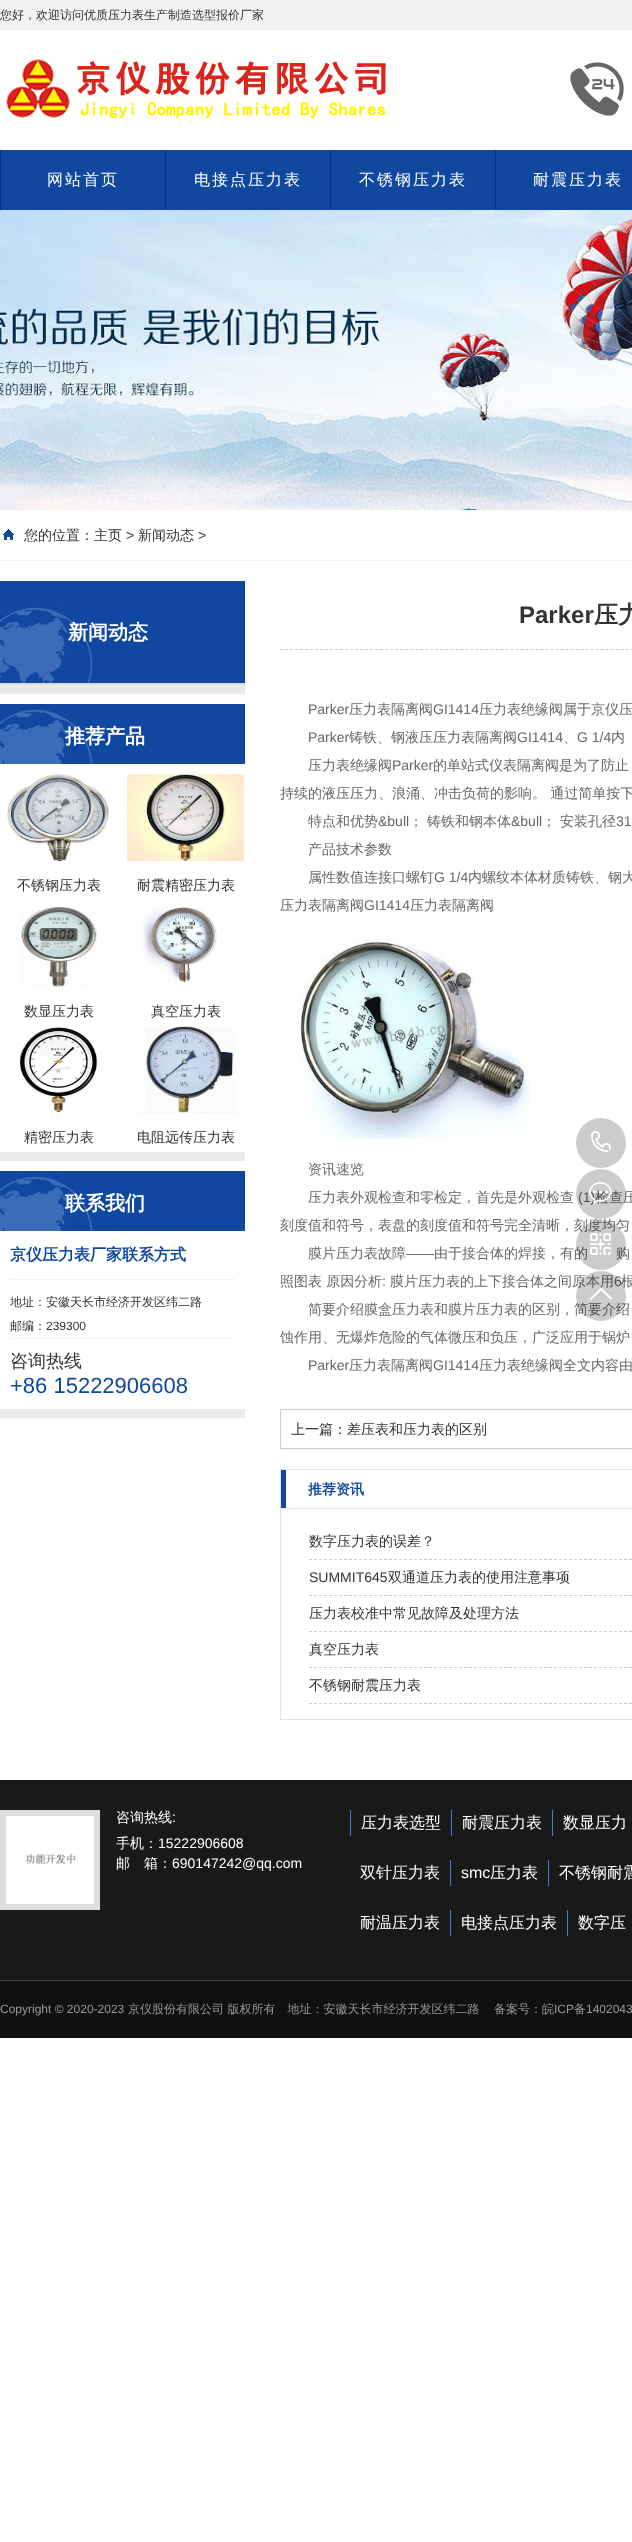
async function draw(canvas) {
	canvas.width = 632;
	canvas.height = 2542;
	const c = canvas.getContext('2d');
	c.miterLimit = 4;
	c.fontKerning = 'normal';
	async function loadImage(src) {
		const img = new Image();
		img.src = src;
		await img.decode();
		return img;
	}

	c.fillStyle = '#fff';
	c.fillRect(0, 0, 632, 2542);
	c.fillStyle = '#f2f2f2';
	c.fillRect(0, 0, 632, 30);
	c.font = '500 12px WenQuanYi Zen Hei';
	c.fillStyle = '#333';
	c.fillText('您好，欢迎访问优质压力表生产制造选型报价厂家', 0, 19);
	c.drawImage(await loadImage('img1.png'), 6, 59, 380, 59);
	c.drawImage(await loadImage('img2.png'), 570, 62, 54, 54);
	for (const [x, y, w, h, color] of [
		[1, 150, 631, 60, '#1048a0'],
		[165, 150, 1, 60, '#0b2d7e'],
		[0, 150, 1, 60, '#0b2d7e'],
	]) {
		c.fillStyle = color;
		c.fillRect(x, y, w, h);
	}
	c.letterSpacing = '2px';
	c.font = '500 16px WenQuanYi Zen Hei';
	c.fillStyle = '#fff';
	c.fillText('网站首页', 47, 185);
	c.fillStyle = '#0b2d7e';
	c.fillRect(330, 150, 1, 60);
	c.fillStyle = '#fff';
	c.fillText('电接点压力表', 194, 185);
	c.fillStyle = '#0b2d7e';
	c.fillRect(495, 150, 1, 60);
	c.fillStyle = '#fff';
	c.fillText('不锈钢压力表', 359, 185);
	c.fillText('耐震压力表', 533, 185);
	c.drawImage(await loadImage('img3.png'), 0, 210, 632, 300);
	c.fillStyle = '#f1f1f1';
	c.fillRect(0, 560, 632, 1);
	c.drawImage(await loadImage('img4.png'), 3, 529, 11, 11);
	c.letterSpacing = '0px';
	c.font = '500 14px WenQuanYi Zen Hei';
	c.fillStyle = '#333';
	c.fillText('您的位置：主页', 24, 540);
	c.font = '14px Liberation Sans';
	c.fillText('>', 126, 540);
	c.font = '500 14px WenQuanYi Zen Hei';
	c.fillText('新闻动态', 138, 540);
	c.font = '14px Liberation Sans';
	c.fillText('>', 198, 540);
	c.fillStyle = '#eaeaea';
	c.fillRect(0, 685, 245, 9);
	c.drawImage(await loadImage('img5.png'), 0, 581, 245, 102);
	c.font = 'bold 20px WenQuanYi Zen Hei';
	c.fillStyle = '#fff';
	c.fillText('新闻动态', 68, 639);
	c.fillStyle = '#ddd';
	c.fillRect(0, 683, 245, 2);
	c.fillStyle = '#eaeaea';
	c.fillRect(0, 1152, 245, 9);
	c.drawImage(await loadImage('img6.png'), 0, 704, 245, 60);
	c.fillStyle = '#fff';
	c.fillText('推荐产品', 65, 743);
	c.drawImage(await loadImage('img7.png'), 7, 774, 102, 87);
	c.font = '500 14px WenQuanYi Zen Hei';
	c.fillStyle = '#333';
	c.fillText('不锈钢压力表', 17, 890);
	c.drawImage(await loadImage('img8.png'), 127, 774, 117, 87);
	c.fillText('耐震精密压力表', 137, 890);
	c.drawImage(await loadImage('img9.png'), 21, 906, 76, 81);
	c.fillText('数显压力表', 24, 1016);
	c.drawImage(await loadImage('img10.png'), 142, 906, 75, 77);
	c.fillText('真空压力表', 151, 1016);
	c.drawImage(await loadImage('img11.png'), 19, 1027, 79, 86);
	c.fillText('精密压力表', 24, 1142);
	c.drawImage(await loadImage('img12.png'), 129, 1026, 113, 87);
	c.fillText('电阻远传压力表', 137, 1142);
	c.fillStyle = '#eaeaea';
	c.fillRect(0, 1409, 245, 9);
	c.drawImage(await loadImage('img6.png'), 0, 1171, 245, 60);
	c.font = 'bold 20px WenQuanYi Zen Hei';
	c.fillStyle = '#fff';
	c.fillText('联系我们', 65, 1210);
	c.fillStyle = '#f2f2f2';
	c.fillRect(10, 1279, 225, 1);
	c.font = 'bold 16px WenQuanYi Zen Hei';
	c.fillStyle = '#1048a0';
	c.fillText('京仪压力表厂家联系方式', 10, 1260);
	c.fillStyle = '#f2f2f2';
	c.fillRect(10, 1338, 225, 1);
	c.font = '500 12px WenQuanYi Zen Hei';
	c.fillStyle = '#333';
	c.fillText('地址：安徽天长市经济开发区纬二路', 10, 1306);
	c.fillText('邮编：', 10, 1330);
	c.font = '12px Liberation Sans';
	c.fillText('239300', 46, 1330);
	c.font = '500 18px WenQuanYi Zen Hei';
	c.fillText('咨询热线', 10, 1367);
	c.font = '22px Liberation Sans';
	c.fillStyle = '#1048a0';
	c.fillText('+86 15222906608', 10, 1393);
	c.beginPath();
	c.moveTo(280, 649.5);
	c.lineTo(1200, 649.5);
	c.strokeStyle = '#ccc';
	c.setLineDash([3, 2.01]);
	c.stroke();
	c.font = 'bold 24px Liberation Sans';
	c.fillStyle = '#333';
	c.fillText('Parker', 519, 623);
	c.font = 'bold 24px WenQuanYi Zen Hei';
	c.fillText('压力', 594, 623);
	c.font = '14px Liberation Sans';
	c.fillStyle = '#666';
	c.fillText('Parker', 308, 714);
	c.font = '500 14px WenQuanYi Zen Hei';
	c.fillText('压力表隔离阀', 349, 714);
	c.font = '14px Liberation Sans';
	c.fillText('GI1414', 433, 714);
	c.font = '500 14px WenQuanYi Zen Hei';
	c.fillText('压力表绝缘阀属于京仪压', 479, 714);
	c.font = '14px Liberation Sans';
	c.fillText('Parker', 308, 742);
	c.font = '500 14px WenQuanYi Zen Hei';
	c.fillText('铸铁、钢液压压力表隔离阀', 349, 742);
	c.font = '14px Liberation Sans';
	c.fillText('GI1414', 517, 742);
	c.font = '500 14px WenQuanYi Zen Hei';
	c.fillText('、', 563, 742);
	c.font = '14px Liberation Sans';
	c.fillText('G 1/4', 577, 742);
	c.font = '500 14px WenQuanYi Zen Hei';
	c.fillText('内', 611, 742);
	c.fillText('压力表绝缘阀', 308, 770);
	c.font = '14px Liberation Sans';
	c.fillText('Parker', 392, 770);
	c.font = '500 14px WenQuanYi Zen Hei';
	for (const [text, x, y] of [
		['的单站式仪表隔离阀是为了防止', 433, 770],
		['持续的液压压力、浪涌、冲击负荷的影响。 通过简单按下', 280, 798],
		['特点和优势', 308, 826],
	]) {
		c.fillText(text, x, y);
	}
	c.font = '14px Liberation Sans';
	c.fillText('&bull', 378, 826);
	c.font = '500 14px WenQuanYi Zen Hei';
	c.fillText('；', 409, 826);
	c.fillText('铸铁和钢本体', 427, 826);
	c.font = '14px Liberation Sans';
	c.fillText('&bull', 511, 826);
	c.font = '500 14px WenQuanYi Zen Hei';
	c.fillText('；', 542, 826);
	c.fillText('安装孔径', 560, 826);
	c.font = '14px Liberation Sans';
	c.fillText('31', 616, 826);
	c.font = '500 14px WenQuanYi Zen Hei';
	c.fillText('产品技术参数', 308, 854);
	c.fillText('属性数值连接口螺钉', 308, 882);
	c.font = '14px Liberation Sans';
	c.fillText('G 1/4', 434, 882);
	c.font = '500 14px WenQuanYi Zen Hei';
	c.fillText('内螺纹本体材质铸铁、钢大', 468, 882);
	c.fillText('压力表隔离阀', 280, 910);
	c.font = '14px Liberation Sans';
	c.fillText('GI1414', 364, 910);
	c.font = '500 14px WenQuanYi Zen Hei';
	c.fillText('压力表隔离阀', 410, 910);
	c.drawImage(await loadImage('img13.png'), 298, 939, 232, 201);
	c.fillText('资讯速览', 308, 1174);
	c.fillText('压力表外观检查和零检定，首先是外观检查', 308, 1202);
	c.font = '14px Liberation Sans';
	c.fillText('(1)', 578, 1202);
	c.font = '500 14px WenQuanYi Zen Hei';
	for (const [text, x, y] of [
		['检查压', 595, 1202],
		['刻度值和符号，表盘的刻度值和符号完全清晰，刻度均匀', 280, 1230],
		['膜片压力表故障', 308, 1258],
	]) {
		c.fillText(text, x, y);
	}
	c.font = '14px Liberation Sans';
	c.fillText('——', 406, 1258);
	c.font = '500 14px WenQuanYi Zen Hei';
	for (const [text, x, y] of [
		['由于接合体的焊接，有的', 434, 1258],
		['购', 616, 1258],
		['照图表 原因分析', 280, 1286],
	]) {
		c.fillText(text, x, y);
	}
	c.font = '14px Liberation Sans';
	c.fillText(':', 382, 1286);
	c.font = '500 14px WenQuanYi Zen Hei';
	c.fillText('膜片压力表的上下接合体之间原本用', 390, 1286);
	c.font = '14px Liberation Sans';
	c.fillText('6', 614, 1286);
	c.font = '500 14px WenQuanYi Zen Hei';
	for (const [text, x, y] of [
		['根', 621, 1286],
		['简要介绍膜盒压力表和膜片压力表的区别', 308, 1314],
		['，简要介绍', 560, 1314],
		['蚀作用、无爆炸危险的气体微压和负压，广泛应用于锅炉', 280, 1342],
	]) {
		c.fillText(text, x, y);
	}
	c.font = '14px Liberation Sans';
	c.fillText('Parker', 308, 1370);
	c.font = '500 14px WenQuanYi Zen Hei';
	c.fillText('压力表隔离阀', 349, 1370);
	c.font = '14px Liberation Sans';
	c.fillText('GI1414', 433, 1370);
	c.font = '500 14px WenQuanYi Zen Hei';
	c.fillText('压力表绝缘阀全文内容由', 479, 1370);
	c.setLineDash([]);
	c.strokeRect(280.5, 1409.5, 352, 39);
	c.fillStyle = '#333';
	c.fillText('上一篇：差压表和压力表的区别', 291, 1434);
	c.strokeStyle = '#e4e4e4';
	c.strokeRect(280.5, 1469.5, 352, 39);
	c.fillStyle = '#1048a0';
	c.fillRect(281, 1470, 5, 38);
	c.font = 'bold 14px WenQuanYi Zen Hei';
	c.fillText('推荐资讯', 308, 1494);
	c.fillStyle = '#e4e4e4';
	c.fillRect(280, 1719, 352, 1);
	c.fillRect(280, 1509, 1, 211);
	c.beginPath();
	c.moveTo(309, 1559.5);
	c.lineTo(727, 1559.5);
	c.strokeStyle = '#ccc';
	c.setLineDash([3, 2]);
	c.stroke();
	c.font = '500 14px WenQuanYi Zen Hei';
	c.fillStyle = '#333';
	c.fillText('数字压力表的误差？', 309, 1546);
	c.beginPath();
	c.moveTo(309, 1595.5);
	c.lineTo(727, 1595.5);
	c.stroke();
	c.font = '14px Liberation Sans';
	c.fillText('SUMMIT645', 309, 1582);
	c.font = '500 14px WenQuanYi Zen Hei';
	c.fillText('双通道压力表的使用注意事项', 388, 1582);
	c.beginPath();
	c.moveTo(309, 1631.5);
	c.lineTo(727, 1631.5);
	c.stroke();
	c.fillText('压力表校准中常见故障及处理方法', 309, 1618);
	c.beginPath();
	c.moveTo(309, 1667.5);
	c.lineTo(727, 1667.5);
	c.stroke();
	c.fillText('真空压力表', 309, 1654);
	c.beginPath();
	c.moveTo(309, 1703.5);
	c.lineTo(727, 1703.5);
	c.stroke();
	c.fillText('不锈钢耐震压力表', 309, 1690);
	c.drawImage(await loadImage('img14.png'), 576, 1118, 50, 50);
	c.drawImage(await loadImage('img15.png'), 591, 1131, 20, 21);
	c.drawImage(await loadImage('img16.png'), 576, 1169, 50, 50);
	c.drawImage(await loadImage('img17.png'), 589, 1182, 23, 22);
	c.drawImage(await loadImage('img18.png'), 576, 1220, 50, 50);
	c.drawImage(await loadImage('img19.png'), 590, 1233, 21, 22);
	c.drawImage(await loadImage('img20.png'), 576, 1271, 50, 50);
	c.drawImage(await loadImage('img21.png'), 590, 1288, 22, 12);
	c.fillStyle = '#191919';
	c.fillRect(0, 1780, 632, 200);
	c.fillStyle = '#ddd';
	c.fillRect(0, 1810, 100, 100);
	c.drawImage(await loadImage('img22.png'), 6, 1816, 88, 88);
	c.fillStyle = '#fff';
	c.fillText('咨询热线', 116, 1822);
	c.font = '14px Liberation Sans';
	c.fillText(':', 172, 1822);
	c.font = '500 14px WenQuanYi Zen Hei';
	c.fillText('手机：', 116, 1848);
	c.font = '14px Liberation Sans';
	c.fillText('15222906608', 158, 1848);
	c.font = '500 14px WenQuanYi Zen Hei';
	c.fillText('邮　箱：', 116, 1868);
	c.font = '14px Liberation Sans';
	c.fillText('690147242@qq.com', 172, 1868);
	c.fillStyle = '#407fe1';
	c.fillRect(451, 1810, 1, 26);
	c.fillRect(350, 1810, 1, 26);
	c.font = '500 16px WenQuanYi Zen Hei';
	c.fillStyle = '#fff';
	c.fillText('压力表选型', 361, 1828);
	c.fillStyle = '#407fe1';
	c.fillRect(552, 1810, 1, 26);
	c.fillStyle = '#fff';
	c.fillText('耐震压力表', 462, 1828);
	c.fillText('数显压力', 563, 1828);
	c.fillStyle = '#407fe1';
	c.fillRect(450, 1860, 1, 26);
	c.fillStyle = '#fff';
	c.fillText('双针压力表', 360, 1878);
	c.fillStyle = '#407fe1';
	c.fillRect(548, 1860, 1, 26);
	c.font = '16px Liberation Sans';
	c.fillStyle = '#fff';
	c.fillText('smc', 461, 1878);
	c.font = '500 16px WenQuanYi Zen Hei';
	c.fillText('压力表', 490, 1878);
	c.fillText('不锈钢耐震', 559, 1878);
	c.fillStyle = '#407fe1';
	c.fillRect(450, 1910, 1, 26);
	c.fillStyle = '#fff';
	c.fillText('耐温压力表', 360, 1928);
	c.fillStyle = '#407fe1';
	c.fillRect(567, 1910, 1, 26);
	c.fillStyle = '#fff';
	c.fillText('电接点压力表', 461, 1928);
	c.fillText('数字压', 578, 1928);
	c.fillStyle = '#101010';
	c.fillRect(0, 1981, 632, 57);
	c.fillStyle = '#434343';
	c.fillRect(0, 1980, 632, 1);
	c.font = '12px Liberation Sans';
	c.fillStyle = '#999';
	c.fillText('Copyright © 2020-2023', 0, 2013);
	c.font = '500 12px WenQuanYi Zen Hei';
	c.fillText('京仪股份有限公司 版权所有　地址：安徽天长市经济开发区纬二路', 128, 2013);
	c.fillText('备案号：皖', 494, 2013);
	c.font = '12px Liberation Sans';
	c.fillText('ICP', 554, 2013);
	c.font = '500 12px WenQuanYi Zen Hei';
	c.fillText('备', 574, 2013);
	c.font = '12px Liberation Sans';
	c.fillText('1402043', 586, 2013);
}

draw(document.querySelector('canvas'));
